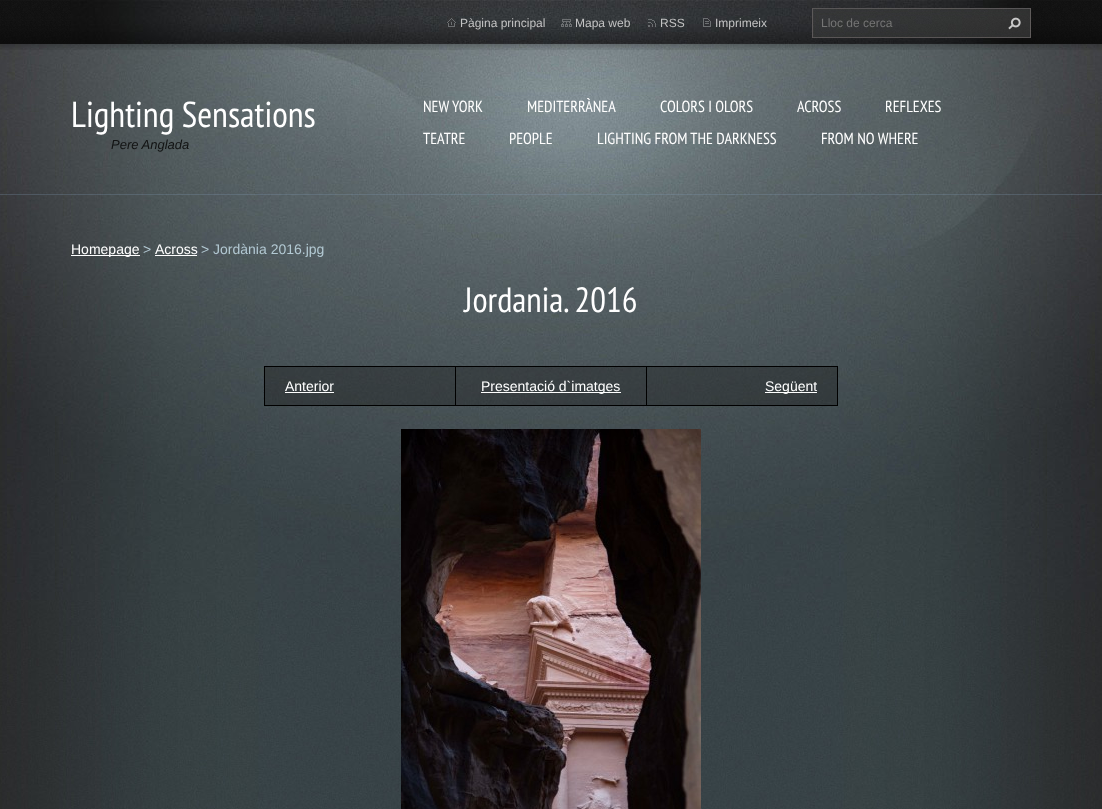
async function draw(canvas) {
	canvas.width = 1102;
	canvas.height = 809;
	const c = canvas.getContext('2d');
	c.miterLimit = 4;
	c.fontKerning = 'normal';
	async function loadImage(src) {
		const img = new Image();
		img.src = src;
		await img.decode();
		return img;
	}

	c.fillStyle = '#fff';
	c.fillRect(0, 0, 1102, 809);
	c.drawImage(await loadImage('img1.png'), 0, 600, 1102, 209);
	c.drawImage(await loadImage('img2.png'), 0, 44, 1102, 556);
	c.fillStyle = '#839eb942';
	c.fillRect(0, 194, 1102, 1);
	c.drawImage(await loadImage('img3.png'), 0, 0, 1102, 50);
	c.drawImage(await loadImage('img4.png'), 71, 0, 960, 44);
	c.drawImage(await loadImage('img5.png'), 447, 18, 9, 9);
	c.font = '12px Liberation Sans';
	c.fillStyle = '#c3c3c3';
	c.fillText('Pàgina principal', 460, 27);
	c.drawImage(await loadImage('img6.png'), 561, 19, 11, 8);
	c.fillText('Mapa web', 575, 27);
	c.drawImage(await loadImage('img7.png'), 648, 19, 8, 8);
	c.fillText('RSS', 660, 27);
	c.drawImage(await loadImage('img8.png'), 703, 18, 8, 9);
	c.fillText('Imprimeix', 715, 27);
	c.drawImage(await loadImage('img9.png'), 812, 8, 219, 30);
	c.fillStyle = '#757575';
	c.fillText('Lloc de cerca', 821, 27);
	c.drawImage(await loadImage('img10.png'), 1008, 17, 13, 13);
	c.font = '36px PT Sans Narrow';
	c.fillStyle = '#fff';
	c.fillText('Lighting Sensations', 71, 127);
	c.font = 'italic 13px Liberation Sans';
	c.fillStyle = '#121313';
	c.fillText('Pere Anglada', 111, 149);
	c.font = '16px PT Sans Narrow';
	c.fillStyle = '#fff';
	for (const [text, x, y] of [
		['NEW YORK', 423, 112],
		['MEDITERRÀNEA', 527, 112],
		['COLORS I OLORS', 660, 112],
		['ACROSS', 797, 112],
		['REFLEXES', 885, 112],
		['TEATRE', 423, 144],
		['PEOPLE', 509, 144],
		['LIGHTING FROM THE DARKNESS', 597, 144],
		['FROM NO WHERE', 821, 144],
	]) {
		c.fillText(text, x, y);
	}
	c.fillRect(71, 255, 69, 1);
	c.font = '14px Liberation Sans';
	c.fillText('Homepage', 71, 254);
	c.fillStyle = '#b3c9d3';
	c.fillText('>', 143, 254);
	c.fillStyle = '#fff';
	c.fillText('Across', 155, 254);
	c.fillRect(155, 255, 42, 1);
	c.fillStyle = '#b3c9d3';
	c.fillText('> Jordània 2016.jpg', 201, 254);
	c.font = '35px PT Sans Narrow';
	c.fillStyle = '#fff';
	c.fillText('Jordania. 2016', 464, 312);
	for (const [x, y, w, h, color] of [
		[264, 366, 574, 1, '#000'],
		[264, 366, 1, 40, '#000'],
		[265, 367, 190, 38, '#1c1c1c5c'],
		[837, 366, 1, 40, '#000'],
		[646, 405, 192, 1, '#000'],
		[646, 366, 1, 40, '#000'],
		[455, 405, 192, 1, '#000'],
		[455, 366, 1, 40, '#000'],
		[264, 405, 192, 1, '#000'],
	]) {
		c.fillStyle = color;
		c.fillRect(x, y, w, h);
	}
	c.font = '14px Liberation Sans';
	c.fillStyle = '#fff';
	c.fillText('Anterior', 285, 391);
	for (const [x, y, w, h, color] of [
		[285, 392, 49, 1, '#fff'],
		[456, 367, 190, 38, '#1c1c1c5c'],
		[481, 392, 140, 1, '#fff'],
	]) {
		c.fillStyle = color;
		c.fillRect(x, y, w, h);
	}
	c.fillText('Presentació d`imatges', 481, 391);
	c.fillStyle = '#1c1c1c5c';
	c.fillRect(647, 367, 190, 38);
	c.fillStyle = '#fff';
	c.fillRect(765, 392, 52, 1);
	c.fillText('Següent', 765, 391);
	c.drawImage(await loadImage('img11.png'), 401, 429, 300, 380);
}

draw(document.querySelector('canvas'));
